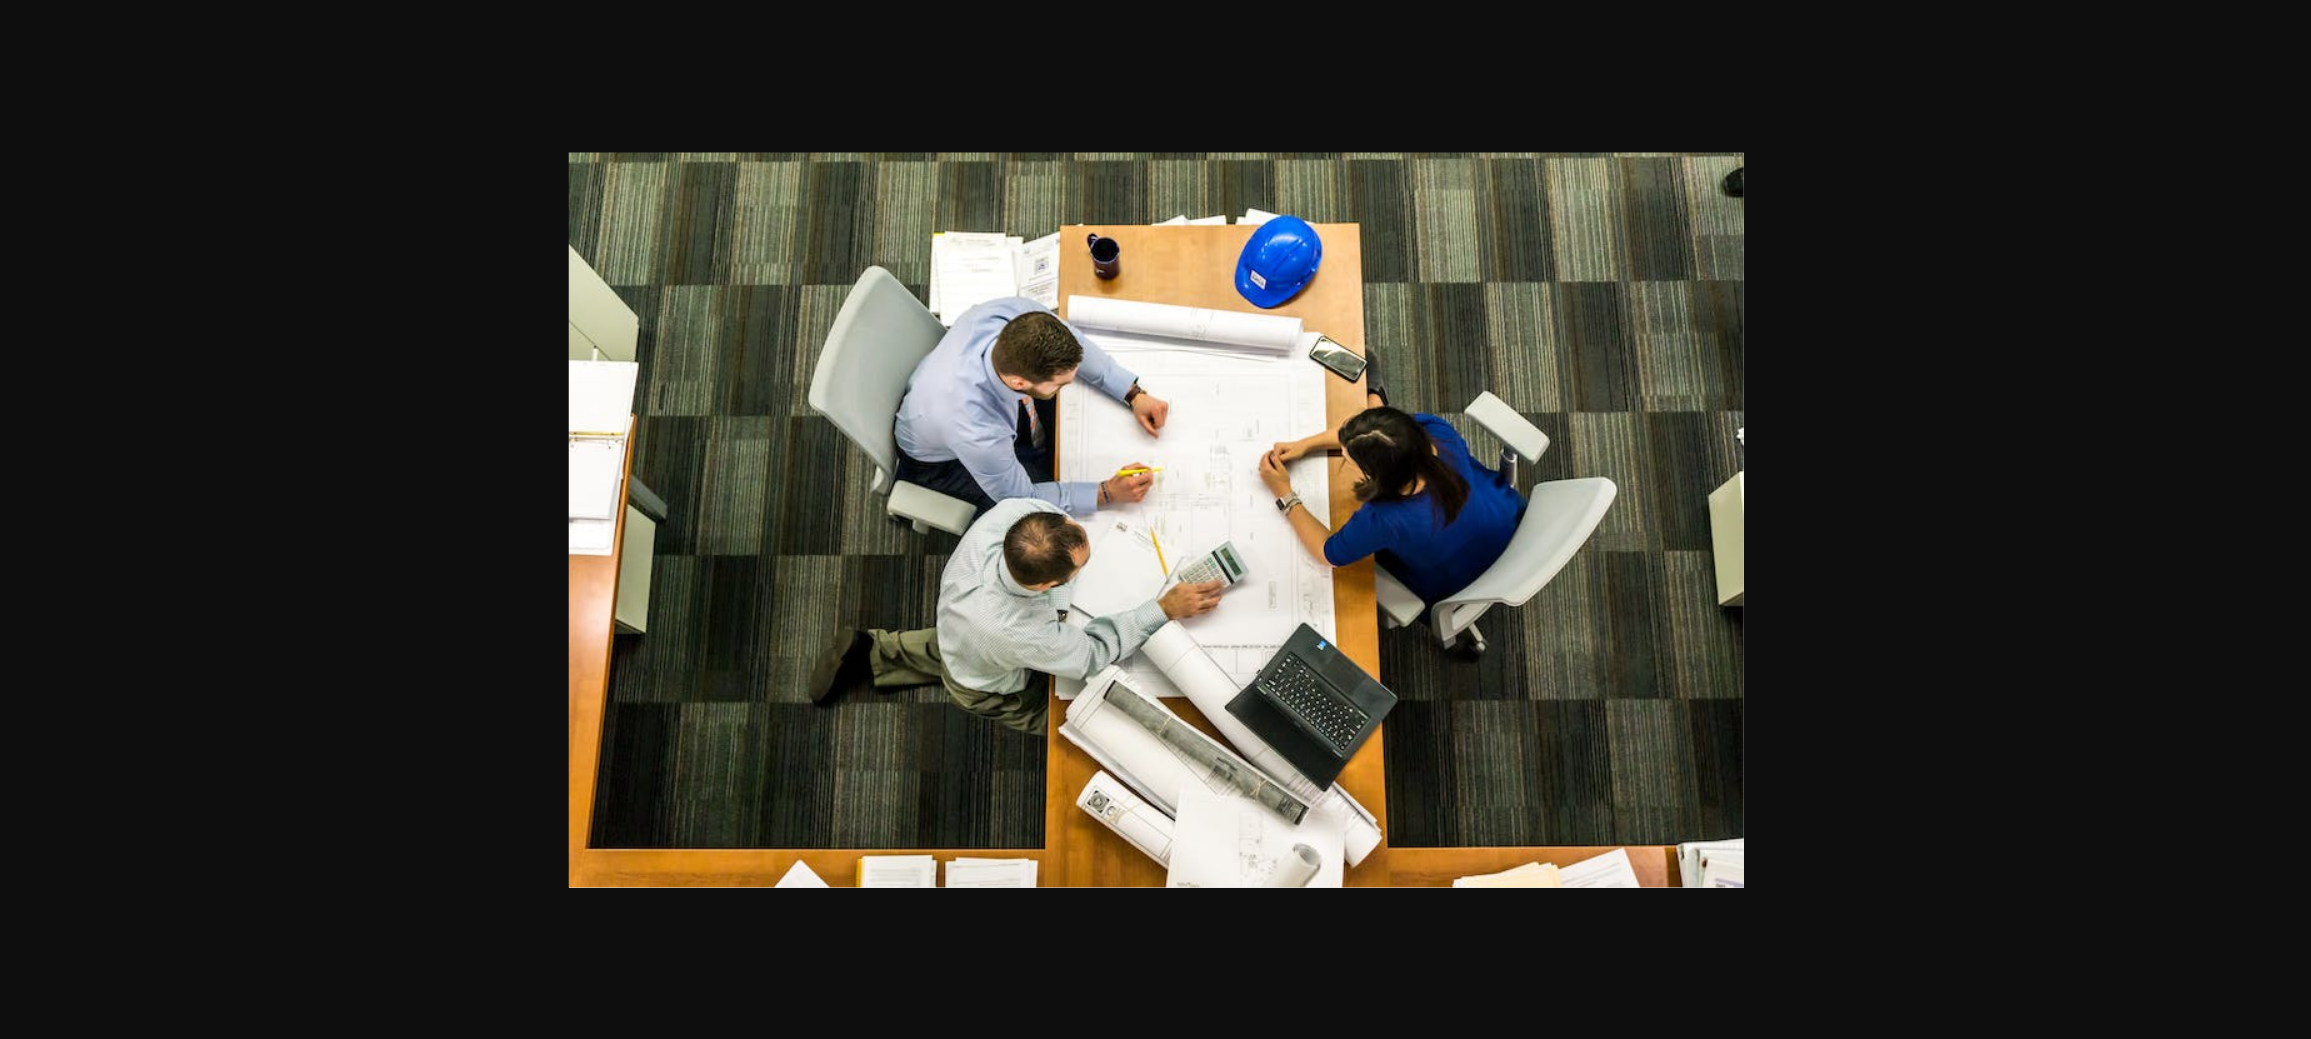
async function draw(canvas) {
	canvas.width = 2311;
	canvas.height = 1039;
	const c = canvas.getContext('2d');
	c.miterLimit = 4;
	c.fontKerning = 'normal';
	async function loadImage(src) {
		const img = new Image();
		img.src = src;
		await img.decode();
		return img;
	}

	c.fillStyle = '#0e0e0e';
	c.fillRect(0, 0, 2311, 1039);
	c.fillStyle = '#e6e6e6';
	c.fillRect(569, 153, 1175, 735);
	c.drawImage(await loadImage('img1.png'), 568, 152, 1176, 736);
}

draw(document.querySelector('canvas'));
